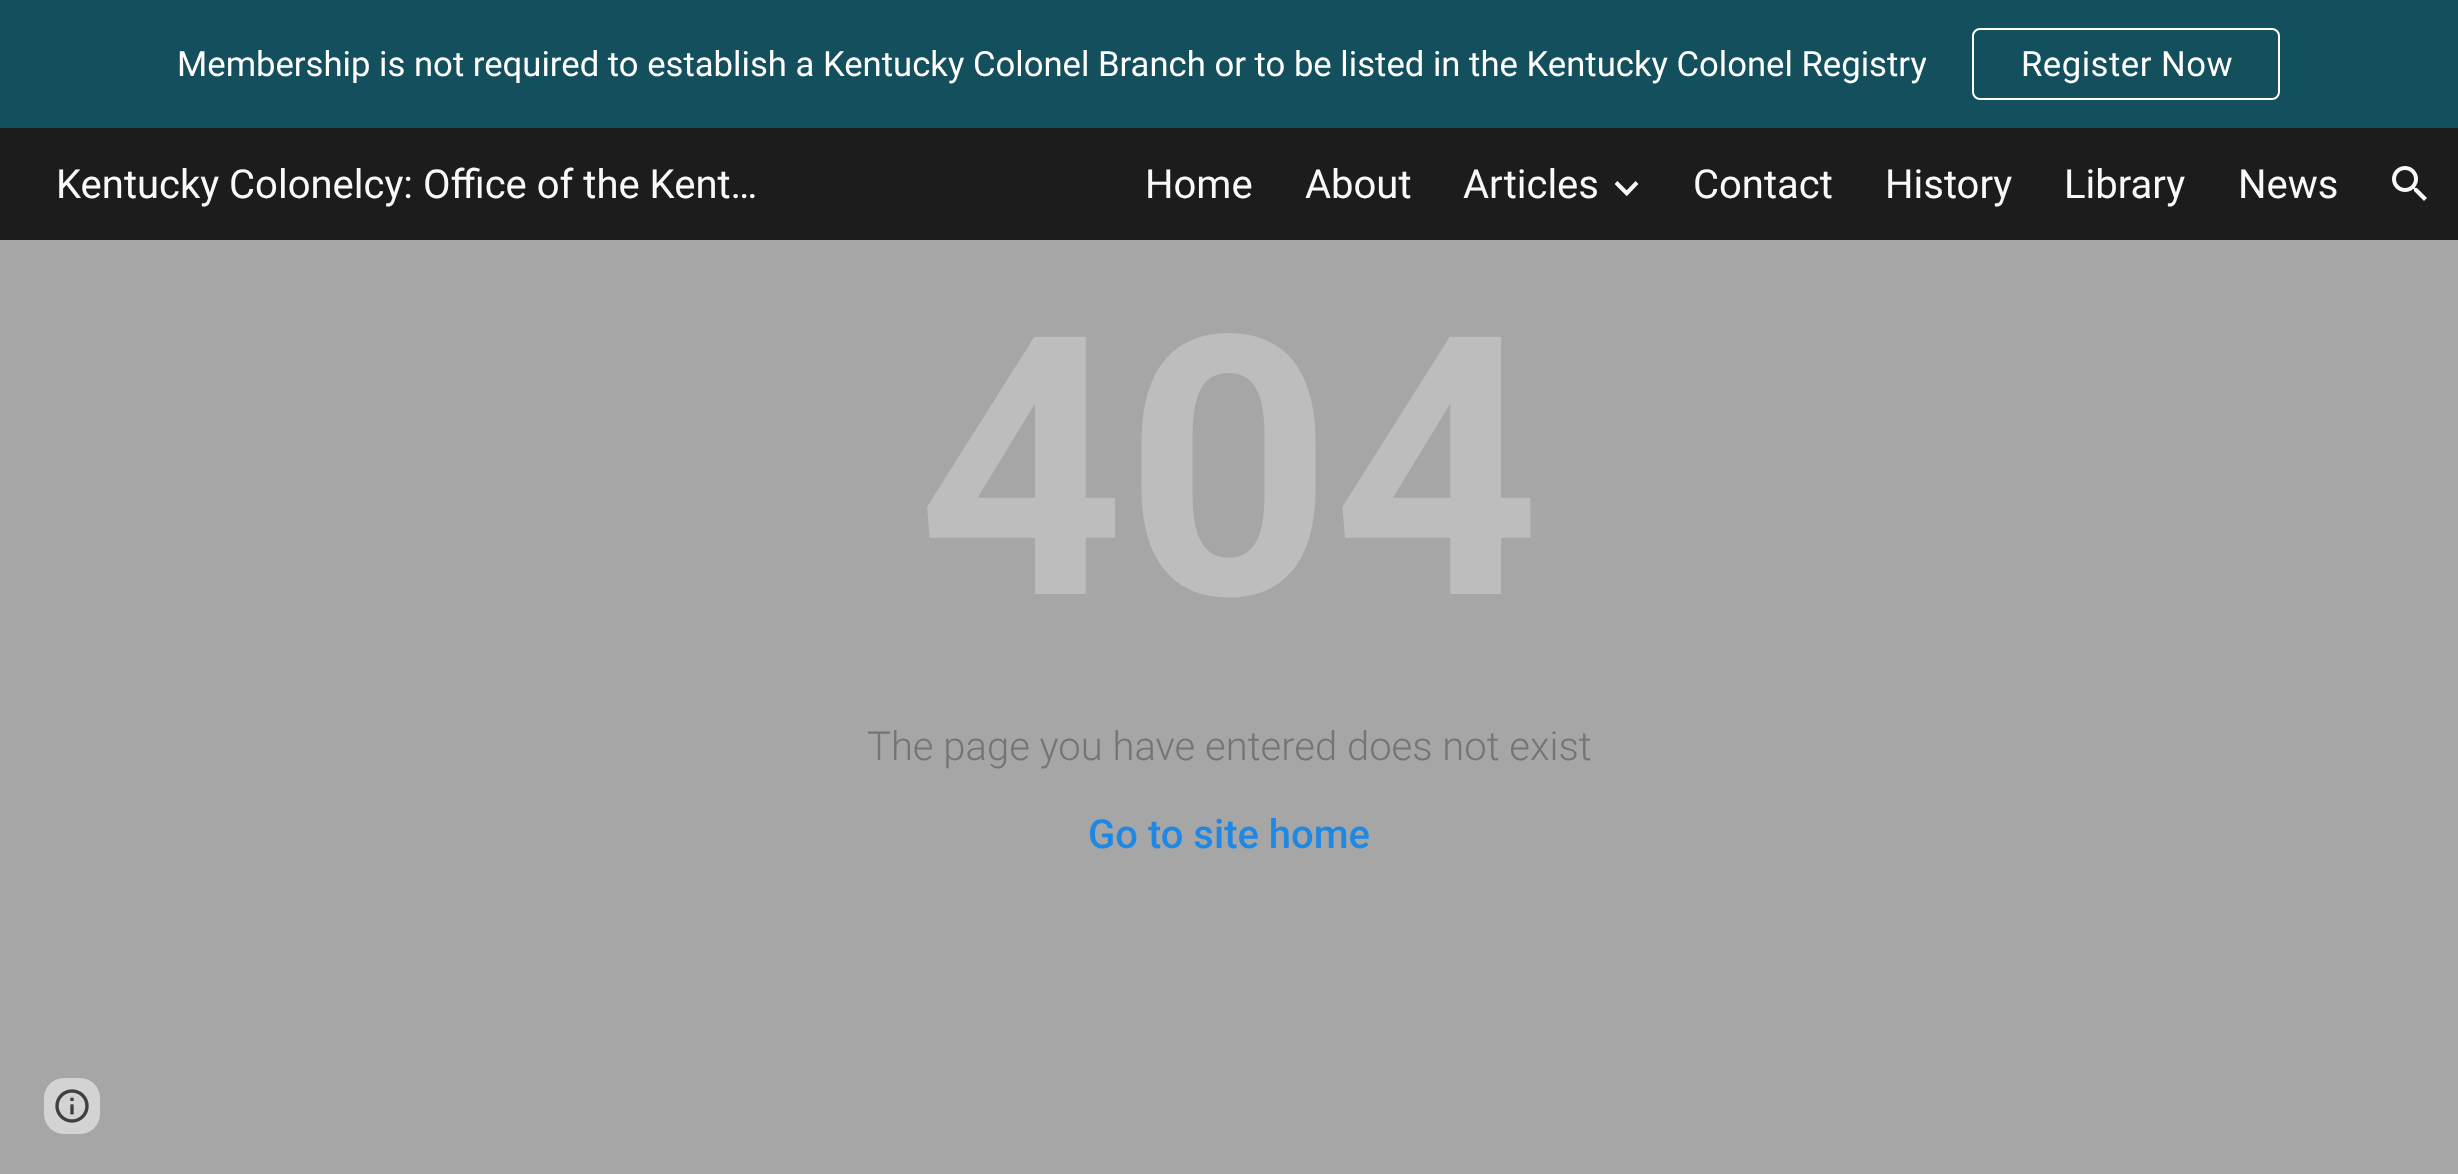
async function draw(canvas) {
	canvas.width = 2458;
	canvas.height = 1174;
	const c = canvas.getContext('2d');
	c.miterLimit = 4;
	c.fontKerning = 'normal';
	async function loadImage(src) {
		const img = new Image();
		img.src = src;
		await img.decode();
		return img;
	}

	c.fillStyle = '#a6a6a6';
	c.fillRect(0, 0, 2458, 1174);
	c.fillStyle = '#134f5c';
	c.fillRect(0, 0, 2458, 128);
	c.save();
	c.beginPath();
	c.rect(178, 44, 1748, 40);
	c.clip();
	c.font = '34.67px Roboto';
	c.fillStyle = '#fff';
	c.fillText('Membership is not required to establish a Kentucky Colonel Branch or to be listed in the Kentucky Colonel Registry', 177, 76);
	c.restore();
	c.beginPath();
	c.roundRect(1973, 29, 306, 70, 7);
	c.strokeStyle = '#fff';
	c.lineWidth = 2;
	c.stroke();
	c.letterSpacing = '0.5px';
	c.font = '34.67px Roboto';
	c.fillStyle = '#fff';
	c.fillText('Register Now', 2021, 76);
	c.fillStyle = '#1c1c1c';
	c.fillRect(0, 128, 2458, 112);
	c.letterSpacing = '0px';
	c.font = '40px Roboto';
	c.fillStyle = '#f9f9f9';
	for (const [text, x, y] of [
		['Kentucky Colonelcy: Office of the Kent…', 56, 198],
		['Home', 1145, 198],
		['About', 1305, 198],
		['Articles', 1463, 198],
	]) {
		c.fillText(text, x, y);
	}
	c.beginPath();
	c.moveTo(1616, 182.5);
	c.lineTo(1628, 194.5);
	c.moveTo(1625.5, 194.5);
	c.lineTo(1637, 182.5);
	c.strokeStyle = '#f9f9f9';
	c.lineWidth = 4;
	c.stroke();
	for (const [text, x, y] of [
		['Contact', 1693, 198],
		['History', 1885, 198],
		['Library', 2064, 198],
		['News', 2238, 198],
	]) {
		c.fillText(text, x, y);
	}
	c.drawImage(await loadImage('img1.png'), 2392, 166, 35, 35);
	c.font = 'bold 362px Roboto';
	c.fillStyle = '#bdbdbd';
	c.fillText('404', 917, 594);
	c.font = '300 40px Roboto';
	c.fillStyle = '#757575';
	c.fillText('The page you have entered does not exist', 867, 760);
	c.font = '500 40px Roboto';
	c.fillStyle = '#1e88e5';
	c.fillText('Go to site home', 1088, 848);
	c.fillStyle = '#d3d3d3';
	c.beginPath();
	c.roundRect(44, 1078, 56, 56, 20);
	c.fill();
	c.drawImage(await loadImage('img2.png'), 55, 1089, 34, 34);
}

draw(document.querySelector('canvas'));
